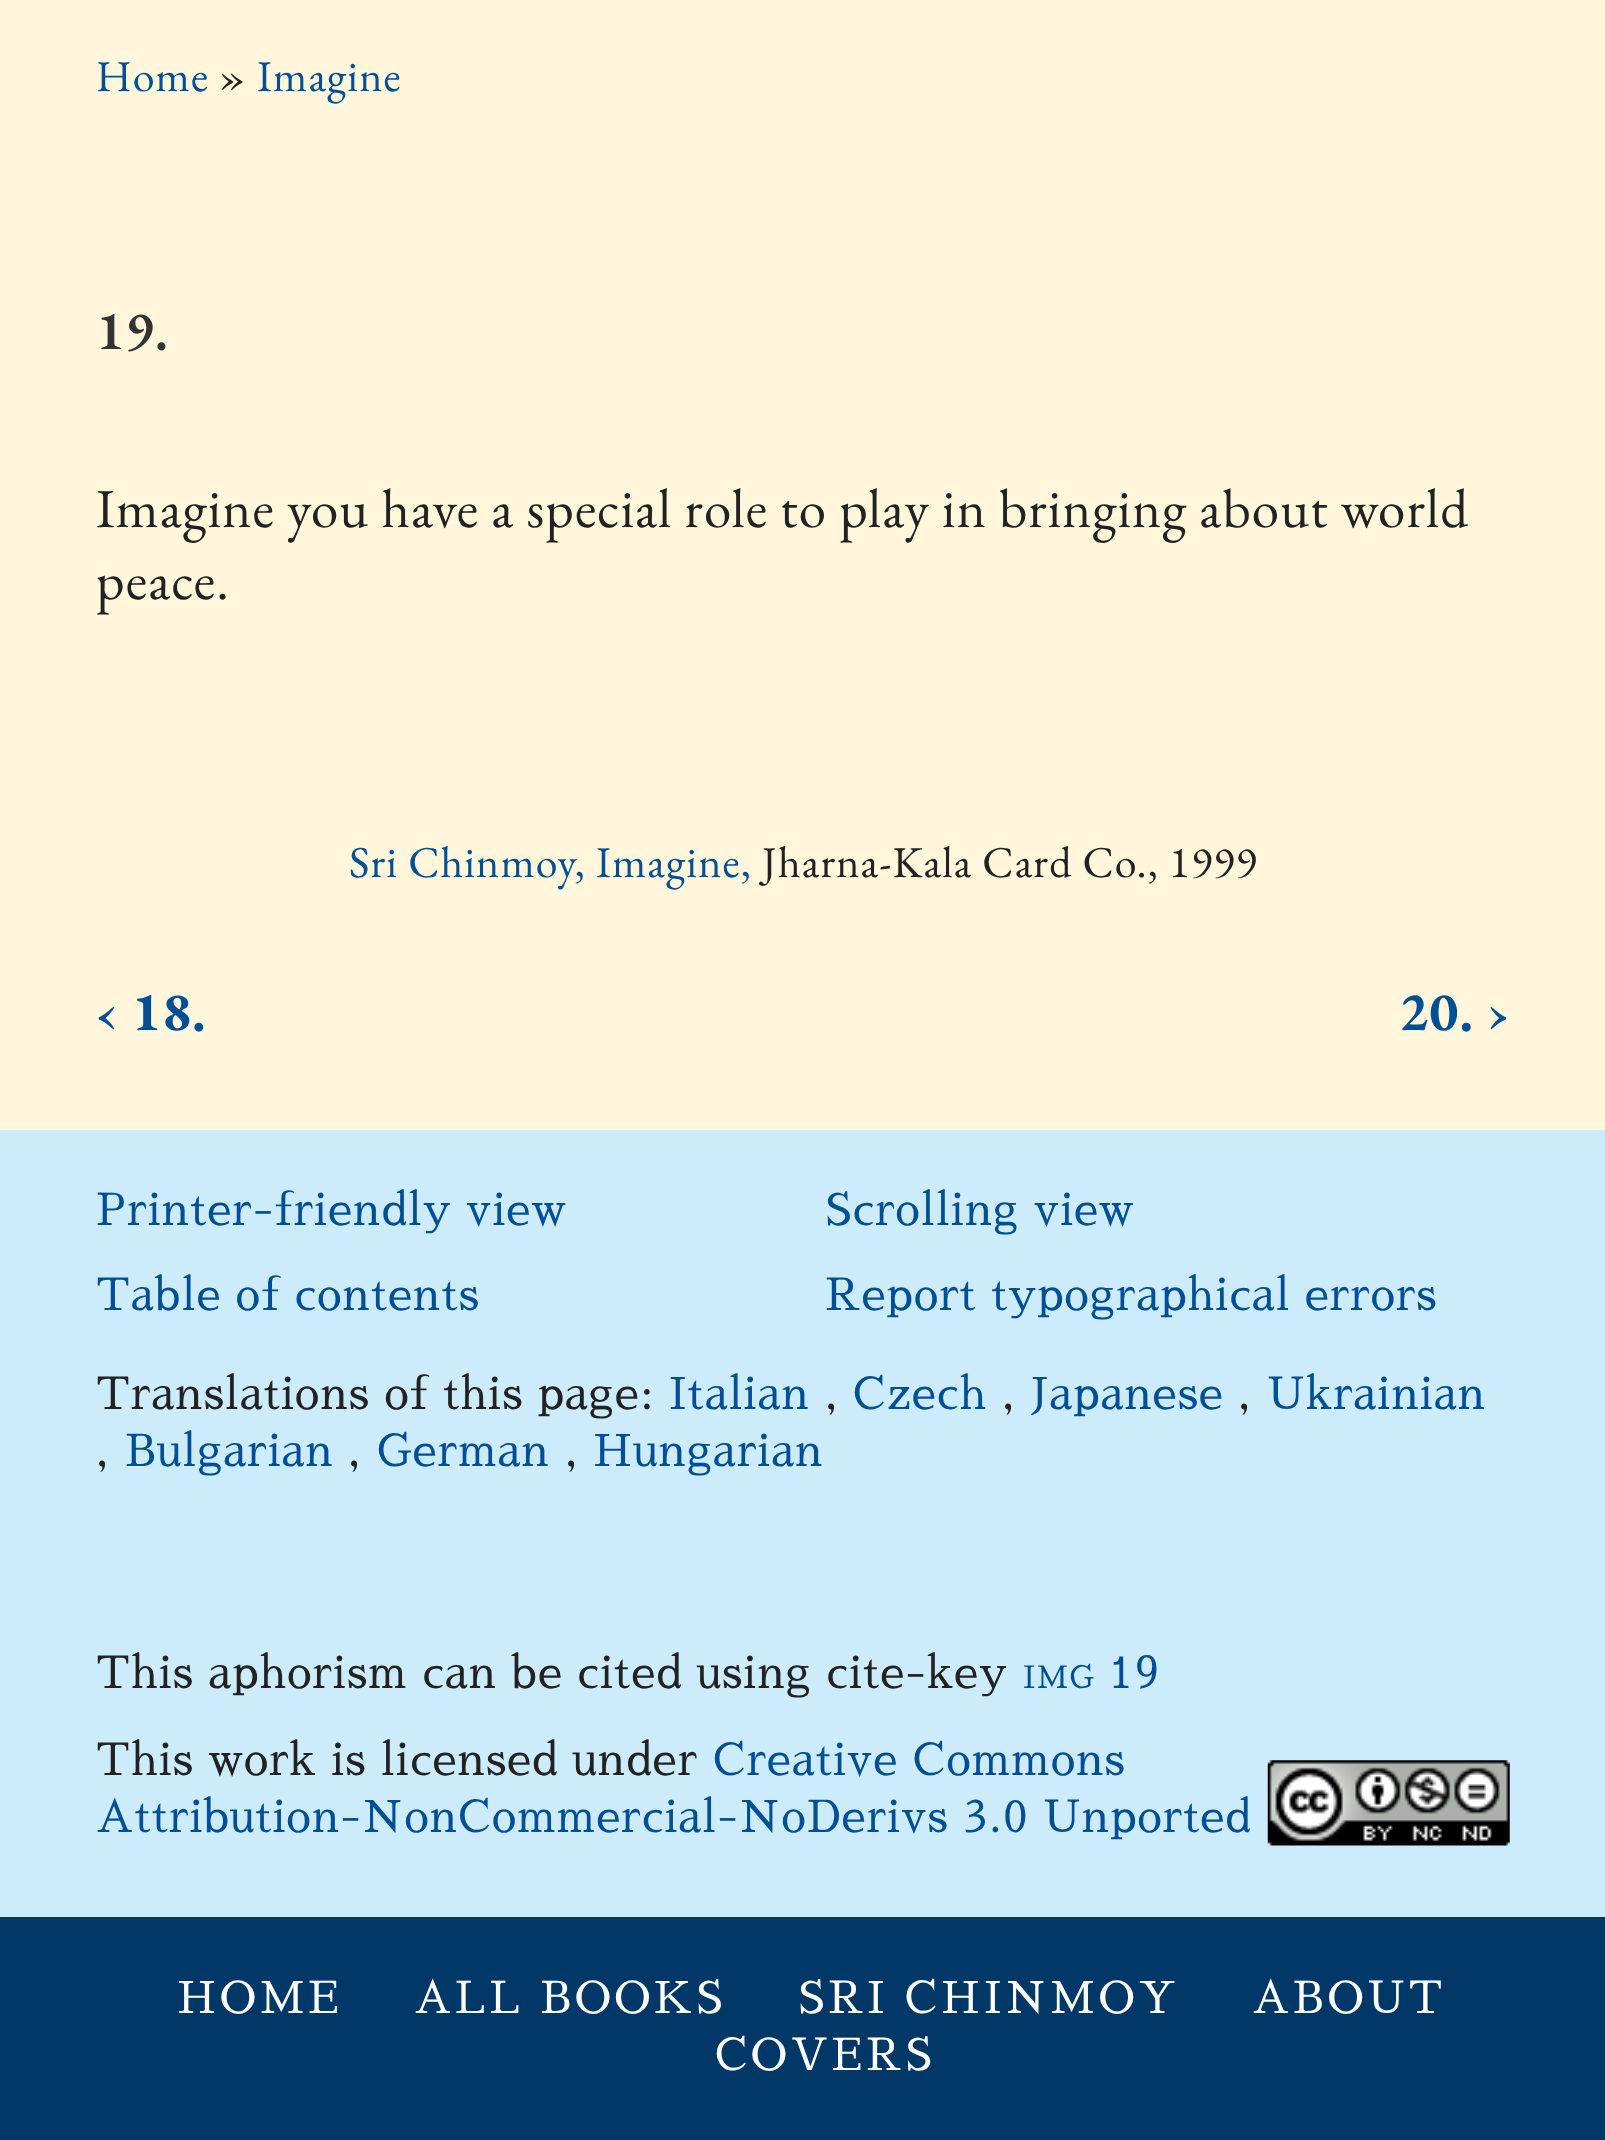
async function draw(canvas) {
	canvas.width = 1605;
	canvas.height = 2140;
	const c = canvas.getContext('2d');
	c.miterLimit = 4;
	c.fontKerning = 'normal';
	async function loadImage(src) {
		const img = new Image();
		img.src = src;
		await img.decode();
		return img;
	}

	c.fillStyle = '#fff6dc';
	c.fillRect(0, 0, 1605, 2140);
	c.letterSpacing = '1.1px';
	c.font = '44px EB Garamond';
	c.fillStyle = '#034f95';
	c.fillText('Home', 96, 91);
	c.fillStyle = '#222';
	c.fillText('»', 219, 91);
	c.fillStyle = '#034f95';
	c.fillText('Imagine', 257, 91);
	c.font = '600 55px EB Garamond';
	c.fillStyle = '#333';
	c.fillText('19.', 96, 349);
	c.font = '55px EB Garamond';
	c.fillStyle = '#222';
	c.fillText('Imagine you have a special role to play in bringing about world', 96, 527);
	c.fillText('peace.', 96, 599);
	c.font = '44px EB Garamond';
	c.fillStyle = '#034f95';
	c.fillText('Sri Chinmoy, Imagine,', 349, 877);
	c.fillStyle = '#222';
	c.fillText('Jharna-Kala Card Co., 1999', 762, 877);
	c.font = 'bold 55px EB Garamond';
	c.fillStyle = '#034f95';
	c.fillText('‹ 18.', 96, 1030);
	c.fillText('20. ›', 1399, 1030);
	c.fillStyle = '#ccecfc';
	c.fillRect(0, 1130, 1605, 787);
	c.font = '44px Sawarabi Mincho';
	c.fillStyle = '#034f95';
	for (const [text, x, y] of [
		['Printer-friendly view', 96, 1225],
		['Scrolling view', 825, 1225],
		['Table of contents', 96, 1310],
		['Report typographical errors', 825, 1310],
	]) {
		c.fillText(text, x, y);
	}
	c.fillStyle = '#222';
	c.fillText('Translations of this page:', 96, 1409);
	c.fillStyle = '#034f95';
	c.fillText('Italian', 669, 1409);
	c.fillStyle = '#222';
	c.fillText(',', 825, 1409);
	c.fillStyle = '#034f95';
	c.fillText('Czech', 853, 1409);
	c.fillStyle = '#222';
	c.fillText(',', 1002, 1409);
	c.fillStyle = '#034f95';
	c.fillText('Japanese', 1031, 1409);
	c.fillStyle = '#222';
	c.fillText(',', 1238, 1409);
	c.fillStyle = '#034f95';
	c.fillText('Ukrainian', 1267, 1409);
	c.fillStyle = '#222';
	c.fillText(',', 96, 1466);
	c.fillStyle = '#034f95';
	c.fillText('Bulgarian', 125, 1466);
	c.fillStyle = '#222';
	c.fillText(',', 348, 1466);
	c.fillStyle = '#034f95';
	c.fillText('German', 377, 1466);
	c.fillStyle = '#222';
	c.fillText(',', 565, 1466);
	c.fillStyle = '#034f95';
	c.fillText('Hungarian', 593, 1466);
	c.fillStyle = '#222';
	c.fillText('This aphorism can be cited using cite-key', 96, 1688);
	c.font = '31px Sawarabi Mincho';
	c.fillStyle = '#034f95';
	c.fillText('IMG', 1023, 1688);
	c.font = '44px Sawarabi Mincho';
	c.fillText('19', 1109, 1688);
	c.fillStyle = '#222';
	c.fillText('This work is licensed under', 96, 1775);
	c.fillStyle = '#034f95';
	c.fillText('Creative Commons', 713, 1775);
	c.drawImage(await loadImage('img1.png'), 1267, 1760, 243, 86);
	c.fillText('Attribution-NonCommercial-NoDerivs 3.0 Unported', 96, 1832);
	c.fillStyle = '#023868';
	c.fillRect(0, 1917, 1605, 223);
	c.letterSpacing = '3.5px';
	c.fillStyle = '#fff';
	for (const [text, x, y] of [
		['HOME', 177, 2013],
		['ALL BOOKS', 414, 2013],
		['SRI CHINMOY', 798, 2013],
		['ABOUT', 1252, 2013],
		['COVERS', 715, 2070],
	]) {
		c.fillText(text, x, y);
	}
}

draw(document.querySelector('canvas'));
